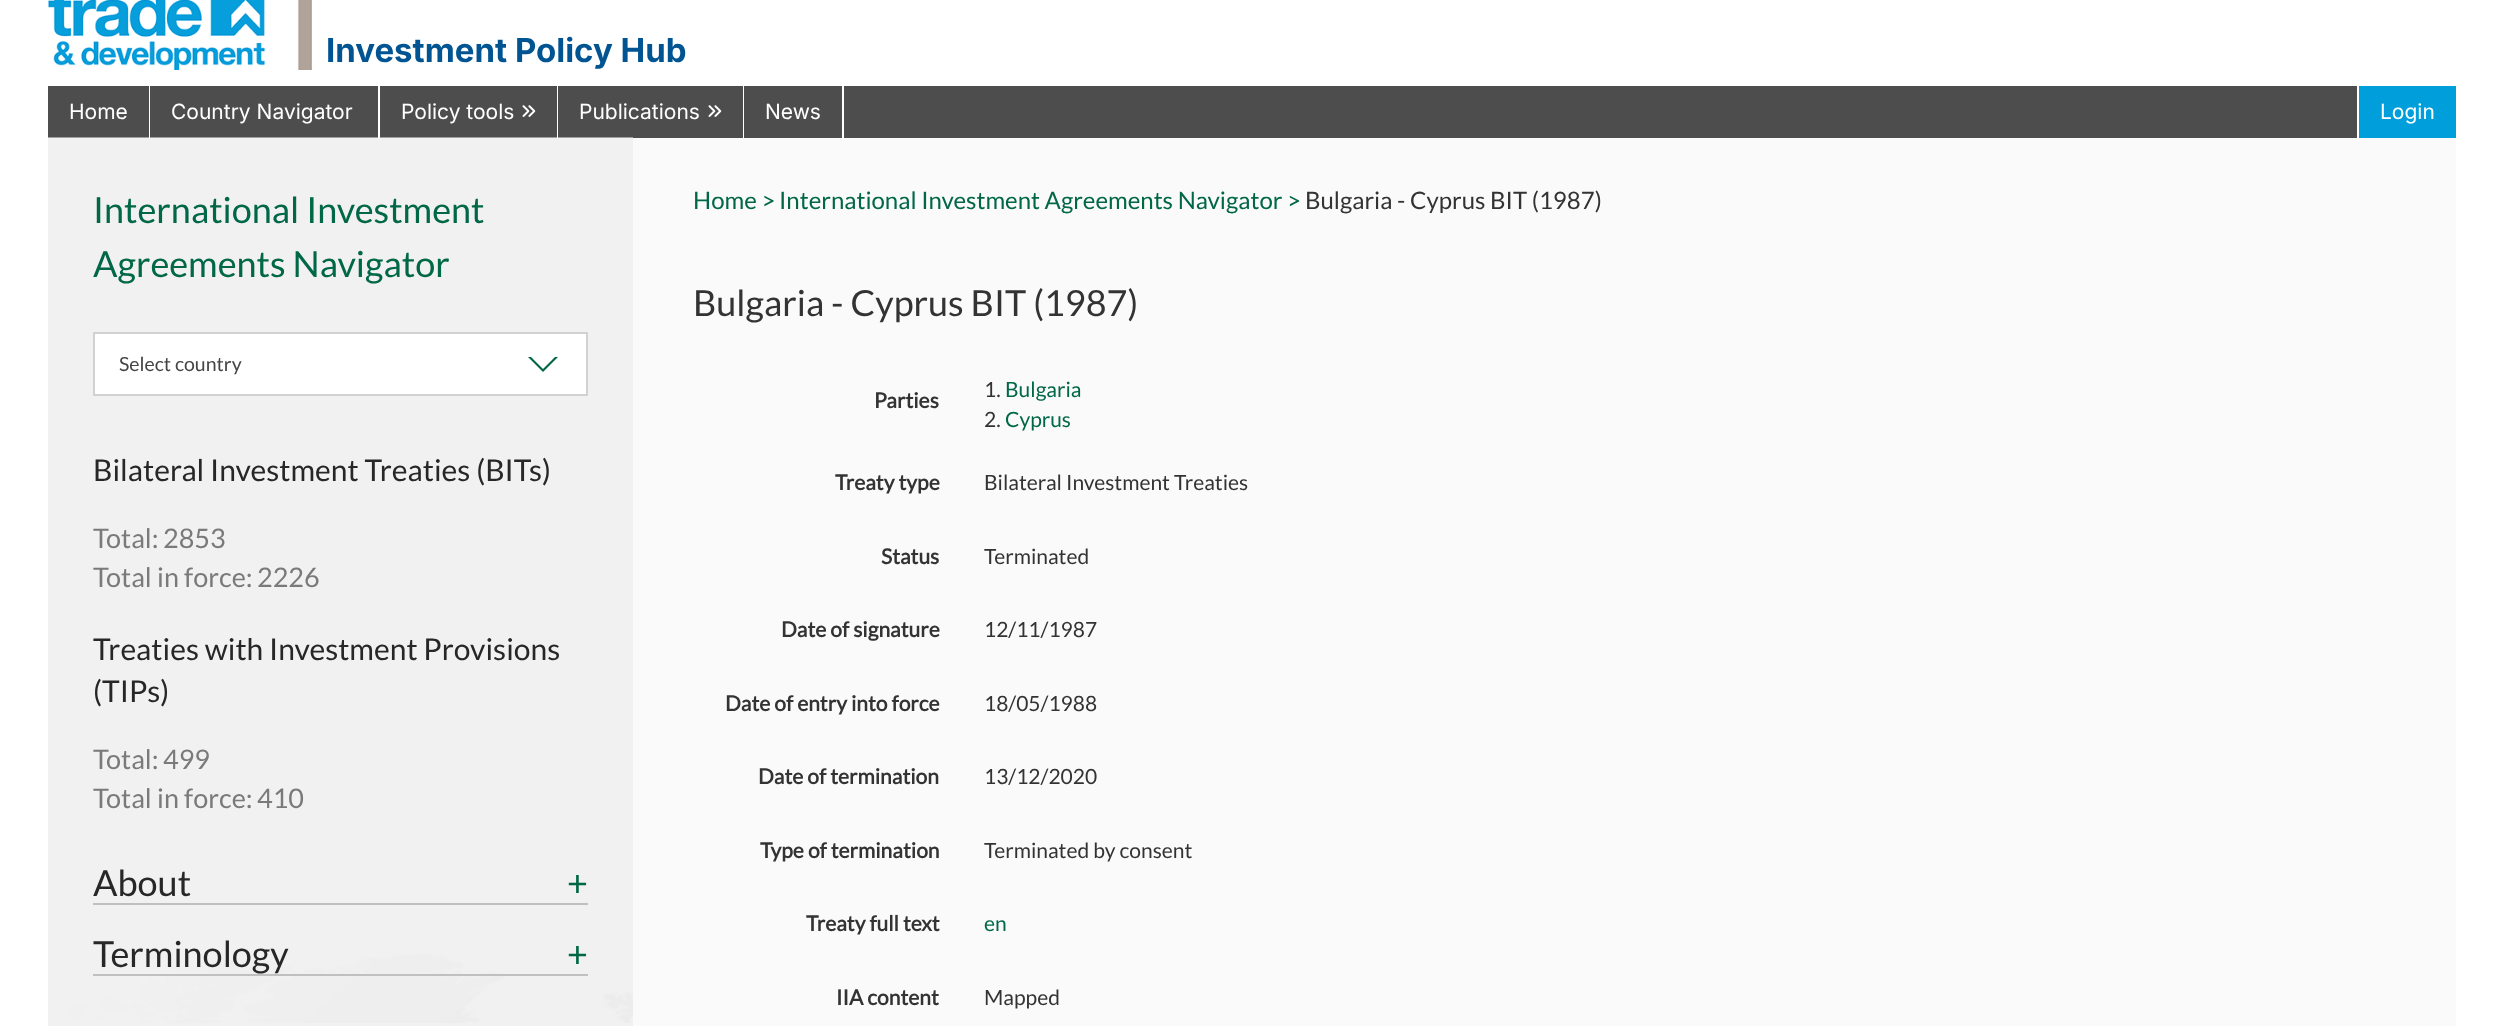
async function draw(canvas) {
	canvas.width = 2503;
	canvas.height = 1026;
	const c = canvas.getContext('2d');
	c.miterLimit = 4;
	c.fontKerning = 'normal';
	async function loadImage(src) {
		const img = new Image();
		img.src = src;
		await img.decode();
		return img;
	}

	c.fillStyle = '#fff';
	c.fillRect(0, 0, 2503, 1026);
	c.drawImage(await loadImage('img1.png'), 48, 0, 264, 70);
	c.font = 'bold 33px Inter';
	c.fillStyle = '#005492';
	c.fillText('Investment Policy Hub', 326, 62);
	c.fillStyle = '#4d4d4d';
	c.fillRect(48, 86, 2309, 52);
	c.fillStyle = '#fff';
	c.fillRect(149, 86, 1, 52);
	c.font = '21px Inter';
	c.fillText('Home', 69, 119);
	c.fillRect(378, 86, 2, 52);
	c.fillText('Country Navigator', 171, 119);
	c.fillRect(557, 86, 1, 52);
	c.fillText('Policy tools', 401, 119);
	c.drawImage(await loadImage('img2.png'), 522, 105, 14, 12);
	c.fillRect(743, 86, 1, 52);
	c.fillText('Publications', 579, 119);
	c.drawImage(await loadImage('img2.png'), 708, 105, 14, 12);
	c.fillRect(842, 86, 2, 52);
	c.fillText('News', 765, 119);
	c.fillStyle = '#009edb';
	c.fillRect(2359, 86, 97, 52);
	c.fillStyle = '#fff';
	c.fillText('Login', 2380, 119);
	c.fillStyle = '#f1f1f1';
	c.fillRect(48, 1023, 585, 3);
	c.drawImage(await loadImage('img3.png'), 48, 137, 585, 886);
	c.font = '36px Lato';
	c.fillStyle = '#006747';
	c.fillText('International Investment', 93, 223);
	c.fillText('Agreements Navigator', 93, 277);
	c.fillStyle = '#fff';
	c.beginPath();
	c.rect(94, 333, 493, 62);
	c.fill();
	c.strokeStyle = '#d1d1d1';
	c.lineWidth = 2;
	c.stroke();
	c.font = '19.5px Lato';
	c.fillStyle = '#444';
	c.fillText('Select country', 119, 371);
	c.fillStyle = '#006747';
	c.beginPath();
	c.moveTo(528, 357);
	c.lineTo(558, 357);
	c.lineTo(543, 372);
	c.closePath();
	c.fill();
	c.fillStyle = '#fff';
	c.beginPath();
	c.moveTo(531, 357);
	c.lineTo(555, 357);
	c.lineTo(543, 369);
	c.closePath();
	c.fill();
	c.font = '30px Lato';
	c.fillStyle = '#272727';
	c.fillText('Bilateral Investment Treaties (BITs)', 93, 481);
	c.font = '27px Lato';
	c.fillStyle = '#7a7a7a';
	for (const [text, x, y] of [
		['Total:', 93, 548],
		['2853', 163, 548],
		['Total in force:', 93, 587],
		['2226', 257, 587],
	]) {
		c.fillText(text, x, y);
	}
	c.font = '30px Lato';
	c.fillStyle = '#272727';
	c.fillText('Treaties with Investment Provisions', 93, 660);
	c.fillText('(TIPs)', 93, 702);
	c.font = '27px Lato';
	c.fillStyle = '#7a7a7a';
	for (const [text, x, y] of [
		['Total:', 93, 769],
		['499', 163, 769],
		['Total in force:', 93, 808],
		['410', 257, 808],
	]) {
		c.fillText(text, x, y);
	}
	c.fillStyle = '#c0c0c0';
	c.fillRect(93, 903, 495, 2);
	c.font = '36px Lato';
	c.fillStyle = '#272727';
	c.fillText('About', 93, 896);
	c.fillStyle = '#006747';
	c.fillText('+', 567, 896);
	c.fillStyle = '#c0c0c0';
	c.fillRect(93, 974, 495, 2);
	c.fillStyle = '#272727';
	c.fillText('Terminology', 93, 967);
	c.fillStyle = '#006747';
	c.fillText('+', 567, 967);
	c.fillStyle = '#fafafa';
	c.fillRect(633, 138, 1823, 888);
	c.font = '24px Lato';
	c.fillStyle = '#006747';
	c.fillText('Home >', 693, 209);
	c.fillText('International Investment Agreements Navigator >', 779, 209);
	c.fillStyle = '#333';
	c.fillText('Bulgaria - Cyprus BIT (1987)', 1305, 209);
	c.font = '36px Lato';
	c.fillText('Bulgaria - Cyprus BIT (1987)', 693, 316);
	c.font = 'bold 21px Lato';
	c.fillText('Parties', 874, 408);
	c.font = '21px Lato';
	c.fillText('1.', 984, 397);
	c.fillStyle = '#006747';
	c.fillText('Bulgaria', 1005, 397);
	c.fillStyle = '#333';
	c.fillText('2.', 984, 427);
	c.fillStyle = '#006747';
	c.fillText('Cyprus', 1005, 427);
	c.font = 'bold 21px Lato';
	c.fillStyle = '#333';
	c.fillText('Treaty type', 835, 490);
	c.font = '21px Lato';
	c.fillText('Bilateral Investment Treaties', 984, 490);
	c.font = 'bold 21px Lato';
	c.fillText('Status', 881, 564);
	c.font = '21px Lato';
	c.fillText('Terminated', 984, 564);
	c.font = 'bold 21px Lato';
	c.fillText('Date of signature', 781, 637);
	c.font = '21px Lato';
	c.fillText('12/11/1987', 984, 637);
	c.font = 'bold 21px Lato';
	c.fillText('Date of entry into force', 725, 711);
	c.font = '21px Lato';
	c.fillText('18/05/1988', 984, 711);
	c.font = 'bold 21px Lato';
	c.fillText('Date of termination', 758, 784);
	c.font = '21px Lato';
	c.fillText('13/12/2020', 984, 784);
	c.font = 'bold 21px Lato';
	c.fillText('Type of termination', 760, 858);
	c.font = '21px Lato';
	c.fillText('Terminated by consent', 984, 858);
	c.font = 'bold 21px Lato';
	c.fillText('Treaty full text', 806, 931);
	c.font = '21px Lato';
	c.fillStyle = '#006747';
	c.fillText('en', 984, 931);
	c.font = 'bold 21px Lato';
	c.fillStyle = '#333';
	c.fillText('IIA content', 836, 1005);
	c.font = '21px Lato';
	c.fillText('Mapped', 984, 1005);
}

draw(document.querySelector('canvas'));
